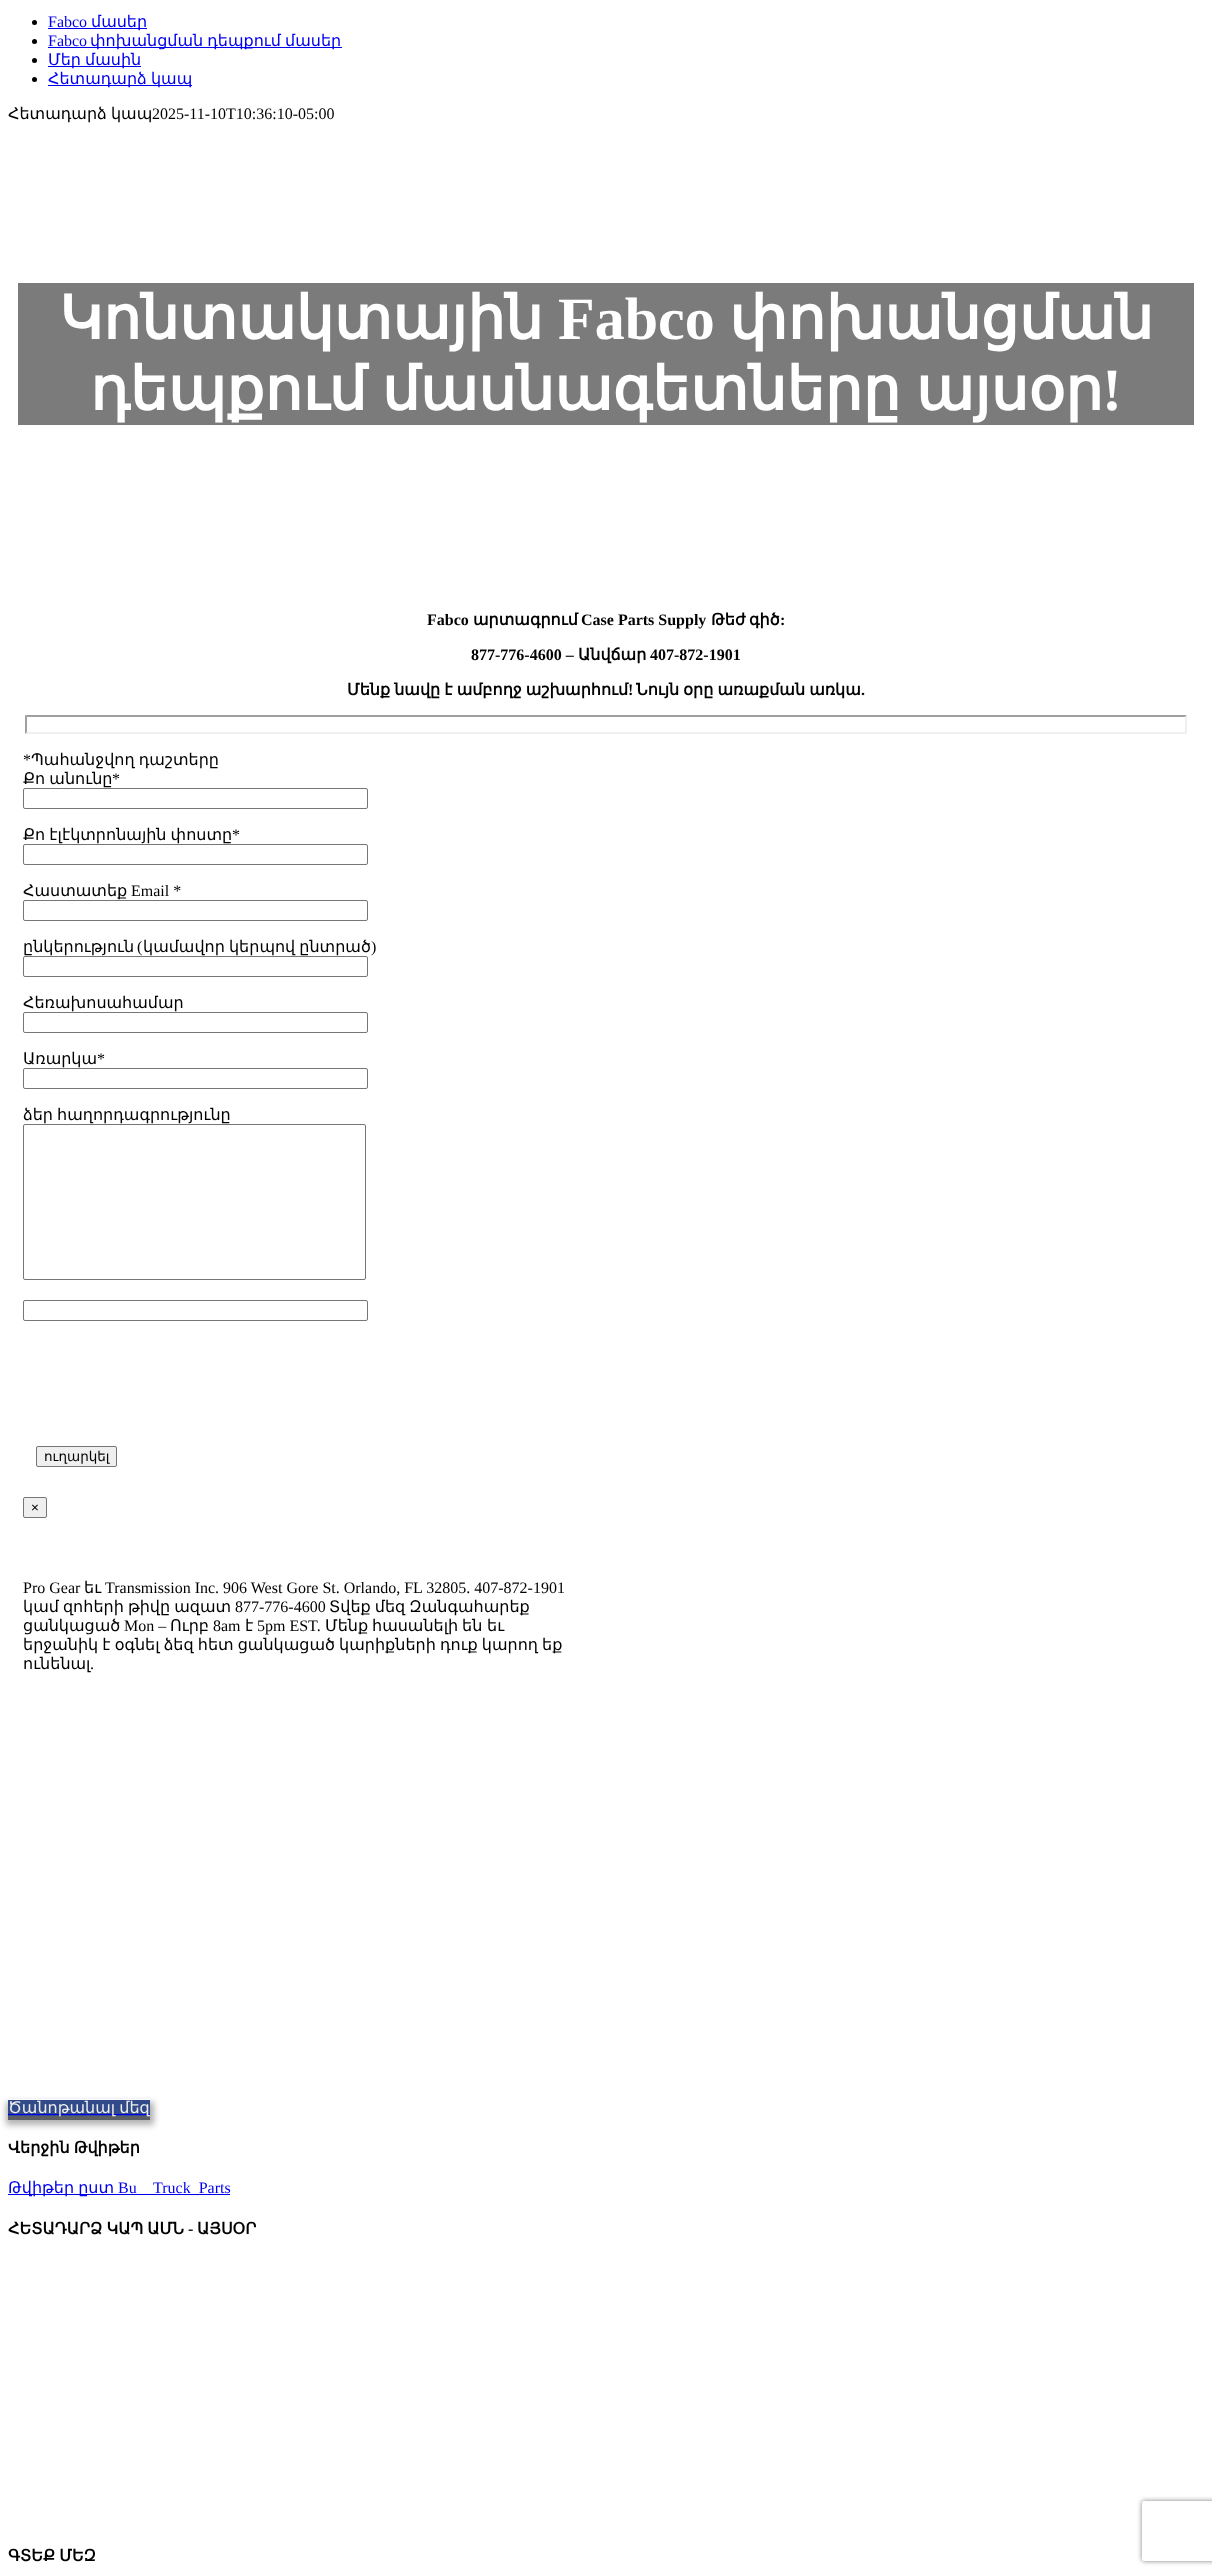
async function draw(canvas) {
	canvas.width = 1212;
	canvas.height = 2575;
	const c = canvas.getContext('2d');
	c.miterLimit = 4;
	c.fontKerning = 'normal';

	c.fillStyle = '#fff';
	c.fillRect(0, 0, 1212, 2575);
	c.fillStyle = '#000';
	c.beginPath();
	c.arc(34.5, 22.5, 2.5, 0, 2 * Math.PI);
	c.fill();
	c.font = '16px Liberation Serif';
	c.fillStyle = '#00e';
	c.fillText('Fabco', 48, 27);
	c.fillRect(48, 28, 99, 1);
	c.font = '16px DejaVu Sans';
	c.fillText('մասեր', 91, 27);
	c.fillStyle = '#000';
	c.beginPath();
	c.arc(34.5, 41.5, 2.5, 0, 2 * Math.PI);
	c.fill();
	c.font = '16px Liberation Serif';
	c.fillStyle = '#00e';
	c.fillText('Fabco', 48, 46);
	c.fillRect(48, 47, 294, 1);
	c.wordSpacing = '-1px';
	c.font = '16px DejaVu Sans';
	c.fillText('փոխանցման դեպքում մասեր', 90, 46);
	c.fillStyle = '#000';
	c.beginPath();
	c.arc(34.5, 60.5, 2.5, 0, 2 * Math.PI);
	c.fill();
	c.fillStyle = '#00e';
	c.fillRect(48, 66, 93, 1);
	c.fillText('Մեր մասին', 48, 65);
	c.fillStyle = '#000';
	c.beginPath();
	c.arc(34.5, 79.5, 2.5, 0, 2 * Math.PI);
	c.fill();
	c.fillStyle = '#00e';
	c.fillRect(48, 85, 144, 1);
	c.fillText('Հետադարձ կապ', 48, 84);
	c.fillStyle = '#000';
	c.fillText('Հետադարձ կապ', 8, 119);
	c.wordSpacing = '0px';
	c.font = '16px Liberation Serif';
	c.fillText('2025-11-10T10:36:10-05:00', 152, 119);
	c.fillStyle = '#7b7b7b';
	c.fillRect(18, 283, 1176, 142);
	c.font = 'bold 60px DejaVu Sans';
	c.fillStyle = '#fff';
	c.fillText('Կոնտակտային', 59, 339);
	c.font = 'bold 60px Liberation Serif';
	c.fillText('Fabco', 558, 339);
	c.font = 'bold 60px DejaVu Sans';
	c.fillText('փոխանցման', 729, 339);
	c.wordSpacing = '-4px';
	c.fillText('դեպքում մասնագետները այսօր', 90, 410);
	c.wordSpacing = '0px';
	c.font = 'bold 60px Liberation Serif';
	c.fillText('!', 1102, 410);
	c.font = 'bold 16px Liberation Serif';
	c.fillStyle = '#000';
	c.fillText('Fabco', 427, 625);
	c.font = 'bold 16px DejaVu Sans';
	c.fillText('արտագրում', 473, 625);
	c.font = 'bold 16px Liberation Serif';
	c.fillText('Case Parts Supply', 581, 625);
	c.font = 'bold 16px DejaVu Sans';
	c.fillText('Թեժ', 711, 625);
	c.fillText('գիծ', 749, 625);
	c.font = 'bold 16px Liberation Serif';
	c.fillText(':', 780, 625);
	c.fillText('877-776-4600 –', 471, 660);
	c.font = 'bold 16px DejaVu Sans';
	c.fillText('Անվճար', 578, 660);
	c.font = 'bold 16px Liberation Serif';
	c.fillText('407-872-1901', 650, 660);
	c.wordSpacing = '-1px';
	c.font = 'bold 16px DejaVu Sans';
	c.fillText('Մենք նավը է ամբողջ աշխարհում', 347, 695);
	c.wordSpacing = '0px';
	c.font = 'bold 16px Liberation Serif';
	c.fillText('!', 628, 695);
	c.wordSpacing = '-1px';
	c.font = 'bold 16px DejaVu Sans';
	c.fillText('Նույն օրը առաքման առկա', 636, 695);
	c.wordSpacing = '0px';
	c.font = 'bold 16px Liberation Serif';
	c.fillText('.', 861, 695);
	c.fillStyle = '#9f9f9f';
	c.beginPath();
	c.moveTo(25, 715);
	c.lineTo(1187, 715);
	c.lineTo(1185, 717);
	c.lineTo(27, 717);
	c.closePath();
	c.fill();
	c.fillStyle = '#efefef';
	c.beginPath();
	c.moveTo(1187, 715);
	c.lineTo(1187, 734);
	c.lineTo(1185, 732);
	c.lineTo(1185, 717);
	c.closePath();
	c.fill();
	c.beginPath();
	c.moveTo(1187, 734);
	c.lineTo(25, 734);
	c.lineTo(27, 732);
	c.lineTo(1185, 732);
	c.closePath();
	c.fill();
	c.fillStyle = '#9f9f9f';
	c.beginPath();
	c.moveTo(25, 734);
	c.lineTo(25, 715);
	c.lineTo(27, 717);
	c.lineTo(27, 732);
	c.closePath();
	c.fill();
	c.font = '16px Liberation Serif';
	c.fillStyle = '#000';
	c.fillText('*', 23, 765);
	c.wordSpacing = '-1px';
	c.font = '16px DejaVu Sans';
	c.fillText('Պահանջվող դաշտերը', 31, 765);
	c.fillText('Քո անունը', 23, 784);
	c.wordSpacing = '0px';
	c.font = '16px Liberation Serif';
	c.fillText('*', 112, 784);
	c.beginPath();
	c.roundRect(23.5, 788.5, 344, 20, 1.5);
	c.strokeStyle = '#767676';
	c.stroke();
	c.wordSpacing = '-1px';
	c.font = '16px DejaVu Sans';
	c.fillText('Քո էլէկտրոնային փոստը', 23, 840);
	c.wordSpacing = '0px';
	c.font = '16px Liberation Serif';
	c.fillText('*', 232, 840);
	c.beginPath();
	c.roundRect(23.5, 844.5, 344, 20, 1.5);
	c.stroke();
	c.font = '16px DejaVu Sans';
	c.fillText('Հաստատեք', 23, 896);
	c.font = '16px Liberation Serif';
	c.fillText('Email *', 131, 896);
	c.beginPath();
	c.roundRect(23.5, 900.5, 344, 20, 1.5);
	c.stroke();
	c.font = '16px DejaVu Sans';
	c.fillText('ընկերություն', 23, 952);
	c.font = '16px Liberation Serif';
	c.fillText('(', 137, 952);
	c.wordSpacing = '-1px';
	c.font = '16px DejaVu Sans';
	c.fillText('կամավոր կերպով ընտրած', 143, 952);
	c.wordSpacing = '0px';
	c.font = '16px Liberation Serif';
	c.fillText(')', 371, 952);
	c.beginPath();
	c.roundRect(23.5, 956.5, 344, 20, 1.5);
	c.stroke();
	c.font = '16px DejaVu Sans';
	c.fillText('Հեռախոսահամար', 23, 1008);
	c.beginPath();
	c.roundRect(23.5, 1012.5, 344, 20, 1.5);
	c.stroke();
	c.fillText('Առարկա', 23, 1064);
	c.font = '16px Liberation Serif';
	c.fillText('*', 97, 1064);
	c.beginPath();
	c.roundRect(23.5, 1068.5, 344, 20, 1.5);
	c.stroke();
	c.wordSpacing = '-1px';
	c.font = '16px DejaVu Sans';
	c.fillText('ձեր հաղորդագրությունը', 23, 1120);
	c.beginPath();
	c.roundRect(23.5, 1124.5, 342, 155, 1.5);
	c.stroke();
	c.beginPath();
	c.roundRect(23.5, 1300.5, 344, 20, 1.5);
	c.stroke();
	c.fillStyle = '#efefef';
	c.beginPath();
	c.roundRect(36.5, 1446.5, 80, 20, 1.5);
	c.fill();
	c.stroke();
	c.wordSpacing = '0px';
	c.font = '13.5px DejaVu Sans';
	c.fillStyle = '#000';
	c.fillText('ուղարկել', 44, 1461);
	c.fillStyle = '#efefef';
	c.beginPath();
	c.roundRect(23.5, 1497.5, 23, 20, 1.5);
	c.fill();
	c.stroke();
	c.font = '13.5px Liberation Sans';
	c.fillStyle = '#000';
	c.fillText('×', 31, 1512);
	c.font = '16px Liberation Serif';
	c.fillText('Pro Gear', 23, 1593);
	c.font = '16px DejaVu Sans';
	c.fillText('եւ', 84, 1593);
	c.font = '16px Liberation Serif';
	c.fillText('Transmission Inc. 906 West Gore St. Orlando, FL 32805. 407-872-1901', 105, 1593);
	c.wordSpacing = '-1px';
	c.font = '16px DejaVu Sans';
	c.fillText('կամ զոհերի թիվը ազատ', 23, 1612);
	c.wordSpacing = '0px';
	c.font = '16px Liberation Serif';
	c.fillText('877-776-4600', 235, 1612);
	c.wordSpacing = '-1px';
	c.font = '16px DejaVu Sans';
	c.fillText('Տվեք մեզ Զանգահարեք', 329, 1612);
	c.wordSpacing = '0px';
	c.fillText('ցանկացած', 23, 1631);
	c.font = '16px Liberation Serif';
	c.fillText('Mon –', 124, 1631);
	c.font = '16px DejaVu Sans';
	c.fillText('Ուրբ', 170, 1631);
	c.font = '16px Liberation Serif';
	c.fillText('8am', 213, 1631);
	c.font = '16px DejaVu Sans';
	c.fillText('է', 245, 1631);
	c.font = '16px Liberation Serif';
	c.fillText('5pm EST.', 257, 1631);
	c.font = '16px DejaVu Sans';
	for (const [text, x, y] of [
		['Մենք', 325, 1631],
		['հասանելի', 372, 1631],
		['են', 462, 1631],
		['եւ', 487, 1631],
	]) {
		c.fillText(text, x, y);
	}
	c.wordSpacing = '-1px';
	c.fillText('երջանիկ է օգնել ձեզ հետ ցանկացած կարիքների դուք կարող եք', 23, 1650);
	c.wordSpacing = '0px';
	c.fillText('ունենալ', 23, 1669);
	c.font = '16px Liberation Serif';
	c.fillText('.', 90, 1669);
	c.fillStyle = '#0000004d';
	c.filter = 'blur(3px)';
	c.beginPath();
	c.rect(6, 2102, 148, 23);
	c.fill();
	c.filter = 'none';
	for (const [x, y, w, h, color] of [
		[8, 2116, 142, 4, '#5c5e65'],
		[8, 2100, 142, 16, '#314a8a'],
		[8, 2114, 142, 1, '#00e'],
	]) {
		c.fillStyle = color;
		c.fillRect(x, y, w, h);
	}
	c.wordSpacing = '-1px';
	c.font = '16px DejaVu Sans';
	c.fillStyle = '#ececec';
	c.fillText('Ծանոթանալ մեզ', 8, 2113);
	c.fillStyle = '#fff';
	c.fillRect(8, 2099, 142, 1);
	c.font = 'bold 16px DejaVu Sans';
	c.fillStyle = '#000';
	c.fillText('Վերջին Թվիթեր', 8, 2153);
	c.fillStyle = '#00e';
	c.fillRect(8, 2194, 222, 1);
	c.font = '16px DejaVu Sans';
	c.fillText('Թվիթեր ըստ', 8, 2193);
	c.wordSpacing = '0px';
	c.font = '16px Liberation Serif';
	c.fillText('Bu', 118, 2193);
	c.fillText('Truck_Parts', 153, 2193);
	c.wordSpacing = '-1px';
	c.font = 'bold 16px DejaVu Sans';
	c.fillStyle = '#000';
	c.fillText('ՀԵՏԱԴԱՐՁ ԿԱՊ ԱՄՆ', 8, 2234);
	c.wordSpacing = '0px';
	c.font = 'bold 16px Liberation Serif';
	c.fillText('-', 188, 2234);
	c.font = 'bold 16px DejaVu Sans';
	c.fillText('ԱՅՍՕՐ', 197, 2234);
	c.wordSpacing = '-1px';
	c.fillText('ԳՏԵՔ ՄԵԶ', 8, 2561);
	c.save();
	c.beginPath();
	c.moveTo(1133, 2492);
	c.lineTo(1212, 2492);
	c.lineTo(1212, 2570);
	c.lineTo(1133, 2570);
	c.closePath();
	c.moveTo(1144, 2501);
	c.lineTo(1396, 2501);
	c.bezierCurveTo(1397, 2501, 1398, 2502, 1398, 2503);
	c.lineTo(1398, 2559);
	c.bezierCurveTo(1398, 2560, 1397, 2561, 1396, 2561);
	c.lineTo(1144, 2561);
	c.bezierCurveTo(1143, 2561, 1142, 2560, 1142, 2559);
	c.lineTo(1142, 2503);
	c.bezierCurveTo(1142, 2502, 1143, 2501, 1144, 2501);
	c.closePath();
	c.clip('evenodd');
	c.fillStyle = '#808080';
	c.filter = 'blur(2.5px)';
	c.beginPath();
	c.roundRect(1142, 2501, 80, 60, 2);
	c.fill();
	c.filter = 'none';
	c.restore();
}

draw(document.querySelector('canvas'));
